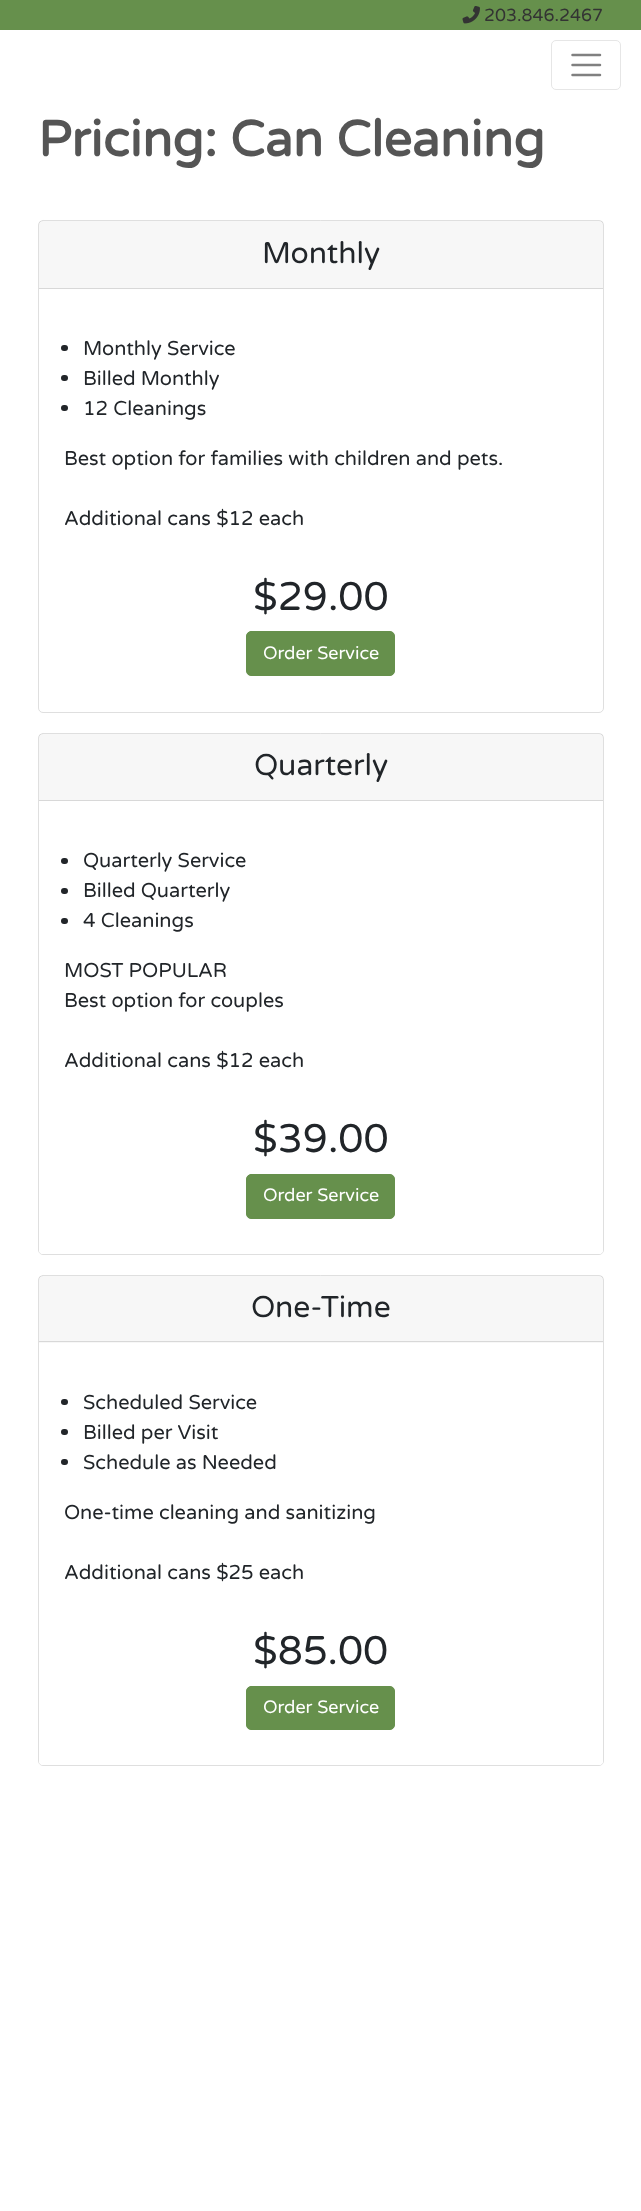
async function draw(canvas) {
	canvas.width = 641;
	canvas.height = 2211;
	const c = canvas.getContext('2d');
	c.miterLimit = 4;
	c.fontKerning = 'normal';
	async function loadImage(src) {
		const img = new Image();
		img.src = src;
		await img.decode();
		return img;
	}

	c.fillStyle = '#fff';
	c.fillRect(0, 0, 641, 2211);
	c.fillStyle = '#66904c';
	c.fillRect(0, 0, 641, 30);
	c.drawImage(await loadImage('img1.png'), 462, 6, 18, 18);
	c.font = '17.5px Varela Round';
	c.fillStyle = '#333';
	c.fillText('203.846.2467', 484, 21);
	c.beginPath();
	c.roundRect(551.5, 40.5, 69, 49, 4.5);
	c.strokeStyle = '#e6e6e6';
	c.stroke();
	c.beginPath();
	c.moveTo(572.5, 55);
	c.lineTo(600, 55);
	c.moveTo(572.5, 65);
	c.lineTo(600, 65);
	c.moveTo(572.5, 75);
	c.lineTo(600, 75);
	c.strokeStyle = '#808080';
	c.lineWidth = 2.5;
	c.lineCap = 'round';
	c.stroke();
	c.font = 'bold 50px Varela Round';
	c.fillStyle = '#555';
	c.fillText('Pricing: Can Cleaning', 38, 156);
	c.beginPath();
	c.roundRect(38.5, 220.5, 565, 492, 4.5);
	c.strokeStyle = '#dfdfdf';
	c.lineWidth = 1;
	c.stroke();
	c.fillStyle = '#00000008';
	c.fillRect(39, 221, 564, 67);
	c.fillStyle = '#d8d8d8';
	c.fillRect(39, 288, 564, 1);
	c.font = '30px Varela Round';
	c.fillStyle = '#212529';
	c.fillText('Monthly', 262, 263);
	c.beginPath();
	c.roundRect(61, 345, 7, 6, 3);
	c.fill();
	c.font = '20px Varela Round';
	c.fillText('Monthly Service', 83, 355);
	c.beginPath();
	c.roundRect(61, 375, 7, 6, 3);
	c.fill();
	c.fillText('Billed Monthly', 83, 385);
	c.beginPath();
	c.roundRect(61, 405, 7, 6, 3);
	c.fill();
	for (const [text, x, y] of [
		['12 Cleanings', 83, 415],
		['Best option for families with children and pets.', 64, 465],
		['Additional cans $12 each', 64, 525],
	]) {
		c.fillText(text, x, y);
	}
	c.font = '40px Varela Round';
	c.fillText('$29.00', 253, 610);
	c.fillStyle = '#66904c';
	c.beginPath();
	c.roundRect(246.5, 631.5, 148, 44, 4.5);
	c.fill();
	c.strokeStyle = '#66904c';
	c.stroke();
	c.font = '18px Varela Round';
	c.fillStyle = '#fff';
	c.fillText('Order Service', 263, 659);
	c.beginPath();
	c.roundRect(38.5, 733.5, 565, 521, 4.5);
	c.strokeStyle = '#dfdfdf';
	c.stroke();
	c.fillStyle = '#00000008';
	c.fillRect(39, 734, 564, 66);
	c.fillStyle = '#d8d8d8';
	c.fillRect(39, 800, 564, 1);
	c.font = '30px Varela Round';
	c.fillStyle = '#212529';
	c.fillText('Quarterly', 254, 775);
	c.beginPath();
	c.roundRect(61, 858, 7, 6, 3);
	c.fill();
	c.font = '20px Varela Round';
	c.fillText('Quarterly Service', 83, 867);
	c.beginPath();
	c.roundRect(61, 888, 7, 6, 3);
	c.fill();
	c.fillText('Billed Quarterly', 83, 897);
	c.beginPath();
	c.roundRect(61, 918, 7, 6, 3);
	c.fill();
	for (const [text, x, y] of [
		['4 Cleanings', 83, 927],
		['MOST POPULAR', 64, 977],
		['Best option for couples', 64, 1007],
		['Additional cans $12 each', 64, 1067],
	]) {
		c.fillText(text, x, y);
	}
	c.fillStyle = '#fff';
	c.beginPath();
	c.roundRect(39, 1101, 564, 153, [0, 0, 4, 4]);
	c.fill();
	c.font = '40px Varela Round';
	c.fillStyle = '#212529';
	c.fillText('$39.00', 253, 1152);
	c.fillStyle = '#66904c';
	c.beginPath();
	c.roundRect(246.5, 1174.5, 148, 44, 4.5);
	c.fill();
	c.strokeStyle = '#66904c';
	c.stroke();
	c.font = '18px Varela Round';
	c.fillStyle = '#fff';
	c.fillText('Order Service', 263, 1201);
	c.beginPath();
	c.roundRect(38.5, 1275.5, 565, 490, 4.5);
	c.strokeStyle = '#dfdfdf';
	c.stroke();
	c.fillStyle = '#00000008';
	c.fillRect(39, 1276, 564, 67);
	c.fillStyle = '#d8d8d8';
	c.fillRect(39, 1341, 564, 1);
	c.font = '30px Varela Round';
	c.fillStyle = '#212529';
	c.fillText('One-Time', 251, 1317);
	c.beginPath();
	c.roundRect(61, 1399, 7, 6, 3);
	c.fill();
	c.font = '20px Varela Round';
	c.fillText('Scheduled Service', 83, 1409);
	c.beginPath();
	c.roundRect(61, 1429, 7, 6, 3);
	c.fill();
	c.fillText('Billed per Visit', 83, 1439);
	c.beginPath();
	c.roundRect(61, 1459, 7, 6, 3);
	c.fill();
	for (const [text, x, y] of [
		['Schedule as Needed', 83, 1469],
		['One-time cleaning and sanitizing', 64, 1519],
		['Additional cans $25 each', 64, 1579],
	]) {
		c.fillText(text, x, y);
	}
	c.fillStyle = '#fff';
	c.beginPath();
	c.roundRect(39, 1613, 564, 152, [0, 0, 4, 4]);
	c.fill();
	c.font = '40px Varela Round';
	c.fillStyle = '#212529';
	c.fillText('$85.00', 253, 1664);
	c.fillStyle = '#66904c';
	c.beginPath();
	c.roundRect(246.5, 1686.5, 148, 43, 4.5);
	c.fill();
	c.strokeStyle = '#66904c';
	c.stroke();
	c.font = '18px Varela Round';
	c.fillStyle = '#fff';
	c.fillText('Order Service', 263, 1713);
}

draw(document.querySelector('canvas'));
